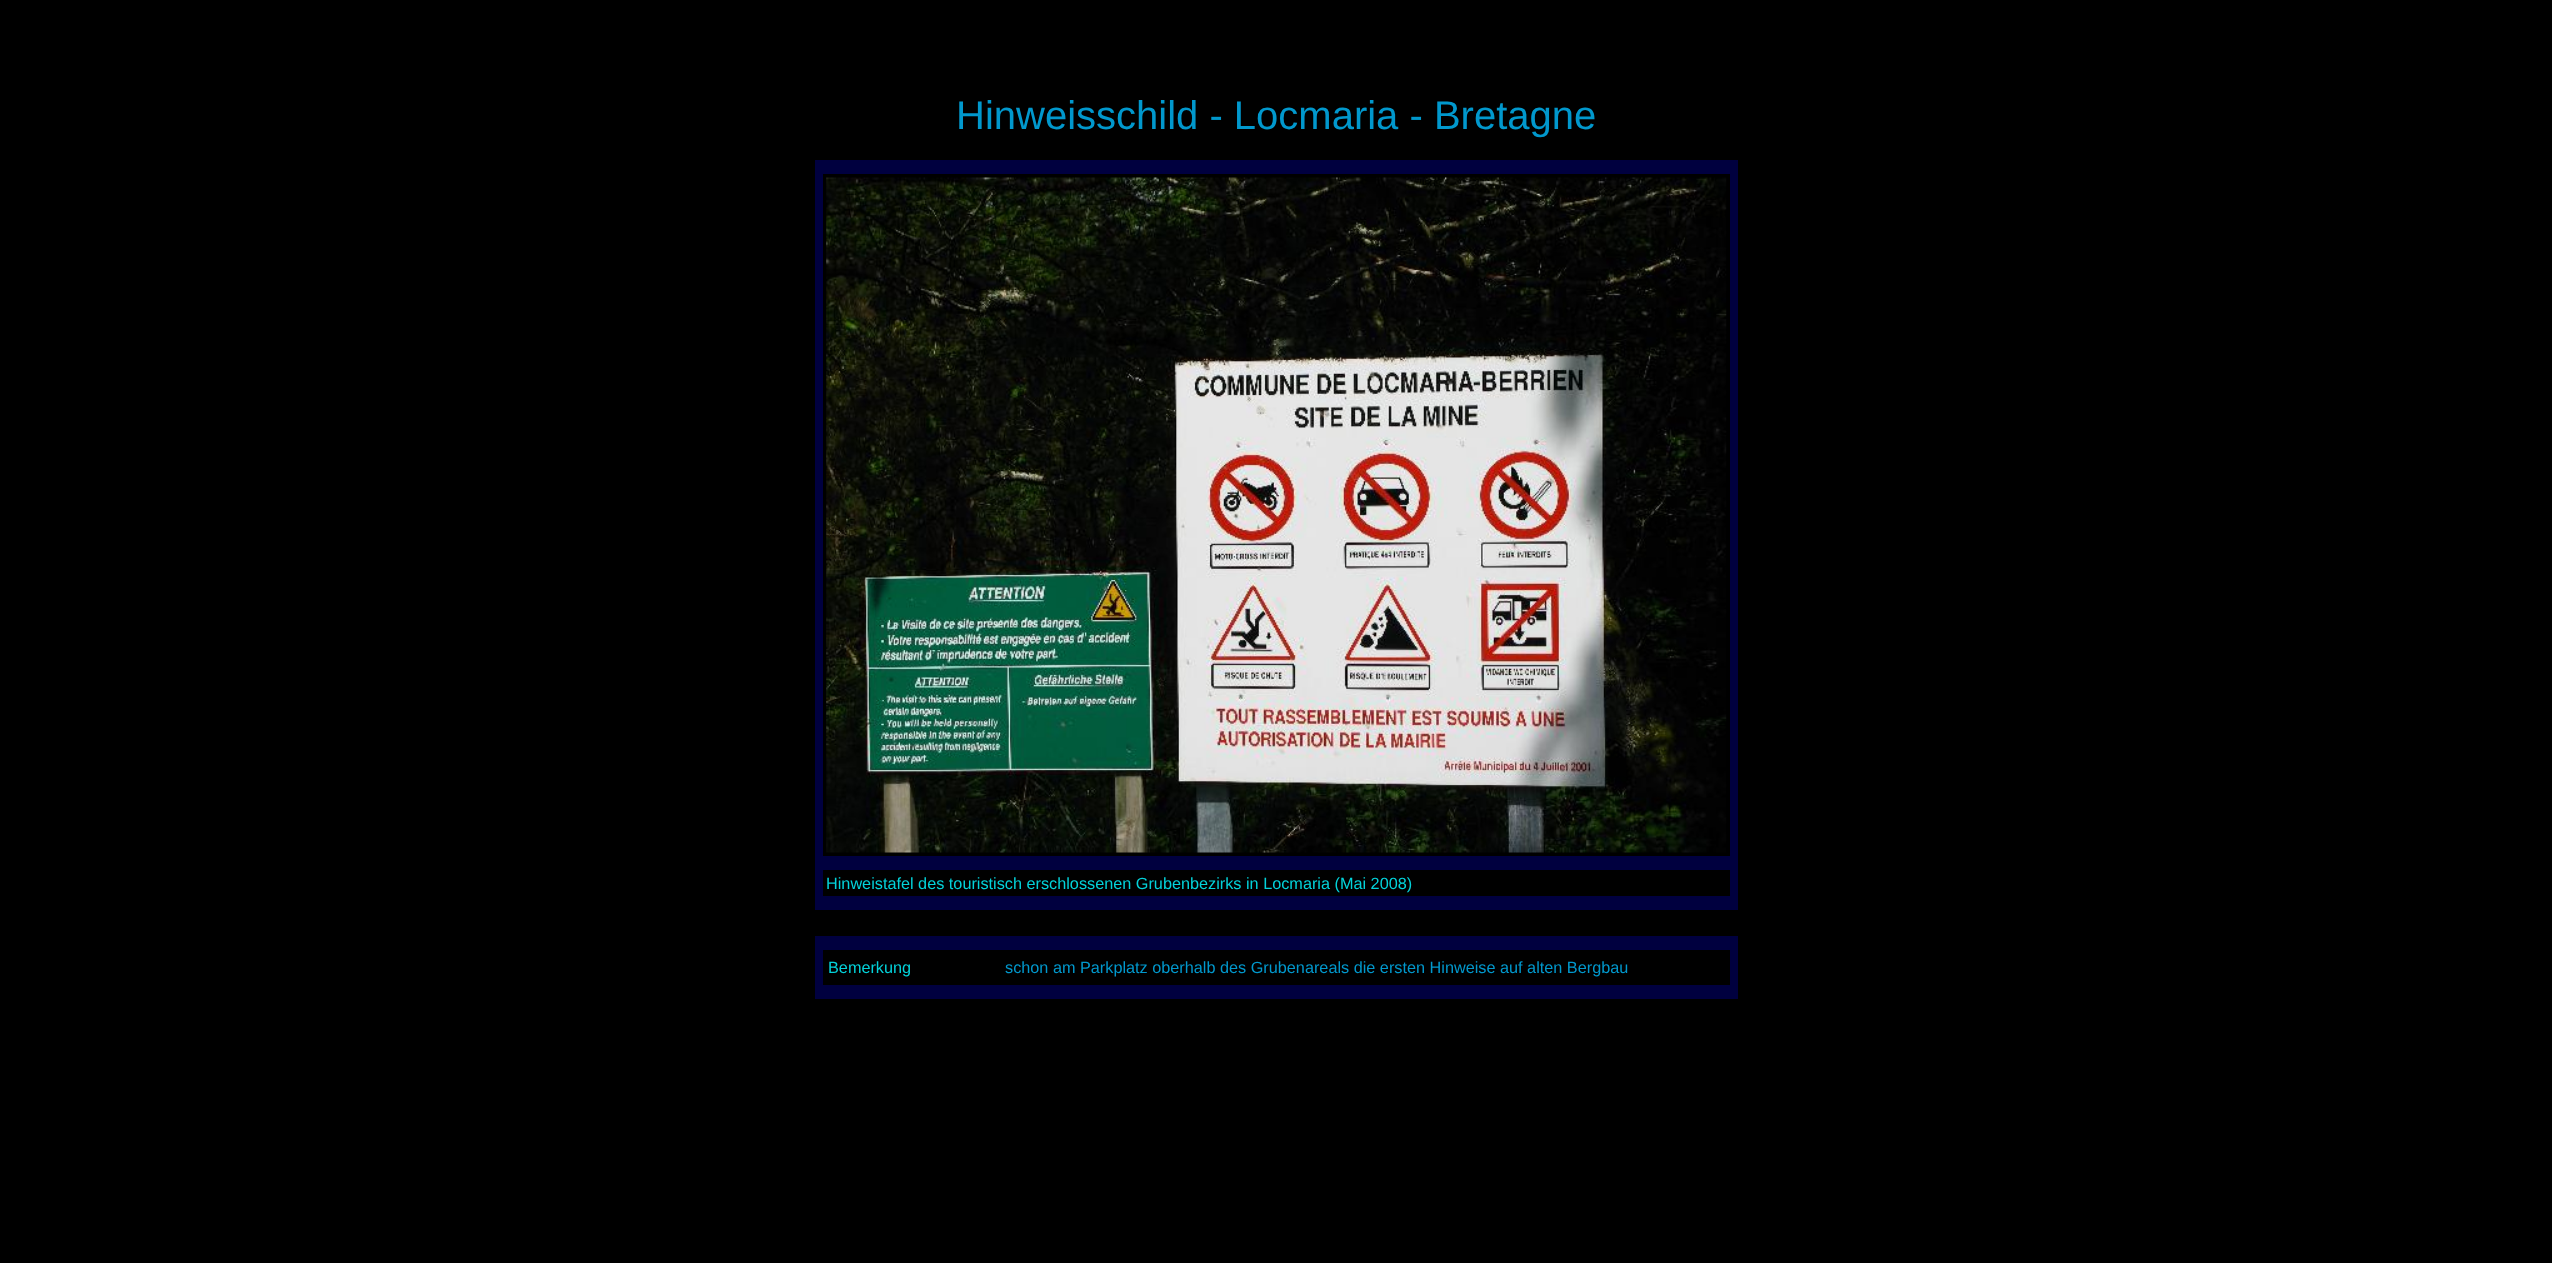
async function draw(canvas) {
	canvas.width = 2552;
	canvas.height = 1263;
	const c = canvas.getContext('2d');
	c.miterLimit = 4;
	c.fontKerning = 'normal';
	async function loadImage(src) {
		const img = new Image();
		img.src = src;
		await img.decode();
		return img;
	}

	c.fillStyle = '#000';
	c.fillRect(0, 0, 2552, 1263);
	c.font = '40px Liberation Sans';
	c.fillStyle = '#0198cd';
	c.fillText('Hinweisschild - Locmaria - Bretagne', 956, 129);
	c.fillStyle = '#00003f';
	c.fillRect(815, 160, 923, 14);
	c.fillRect(815, 174, 8, 736);
	c.drawImage(await loadImage('img1.png'), 826, 177, 901, 676);
	c.fillRect(1730, 174, 8, 682);
	c.fillRect(823, 856, 915, 14);
	c.font = '16.25px Liberation Sans';
	c.fillStyle = '#03d2da';
	c.fillText('Hinweistafel des touristisch erschlossenen Grubenbezirks in Locmaria (Mai 2008)', 826, 889);
	for (const [x, y, w, h, color] of [
		[1730, 870, 8, 26, '#00003f'],
		[823, 896, 915, 14, '#00003f'],
		[815, 936, 923, 14, '#00003f'],
		[815, 950, 8, 49, '#00003f'],
	]) {
		c.fillStyle = color;
		c.fillRect(x, y, w, h);
	}
	c.fillStyle = '#03d2da';
	c.fillText('Bemerkung', 828, 973);
	c.fillStyle = '#0198cd';
	c.fillText('schon am Parkplatz oberhalb des Grubenareals die ersten Hinweise auf alten Bergbau', 1005, 973);
	c.fillStyle = '#00003f';
	c.fillRect(1730, 950, 8, 35);
	c.fillRect(823, 985, 915, 14);
}

draw(document.querySelector('canvas'));
